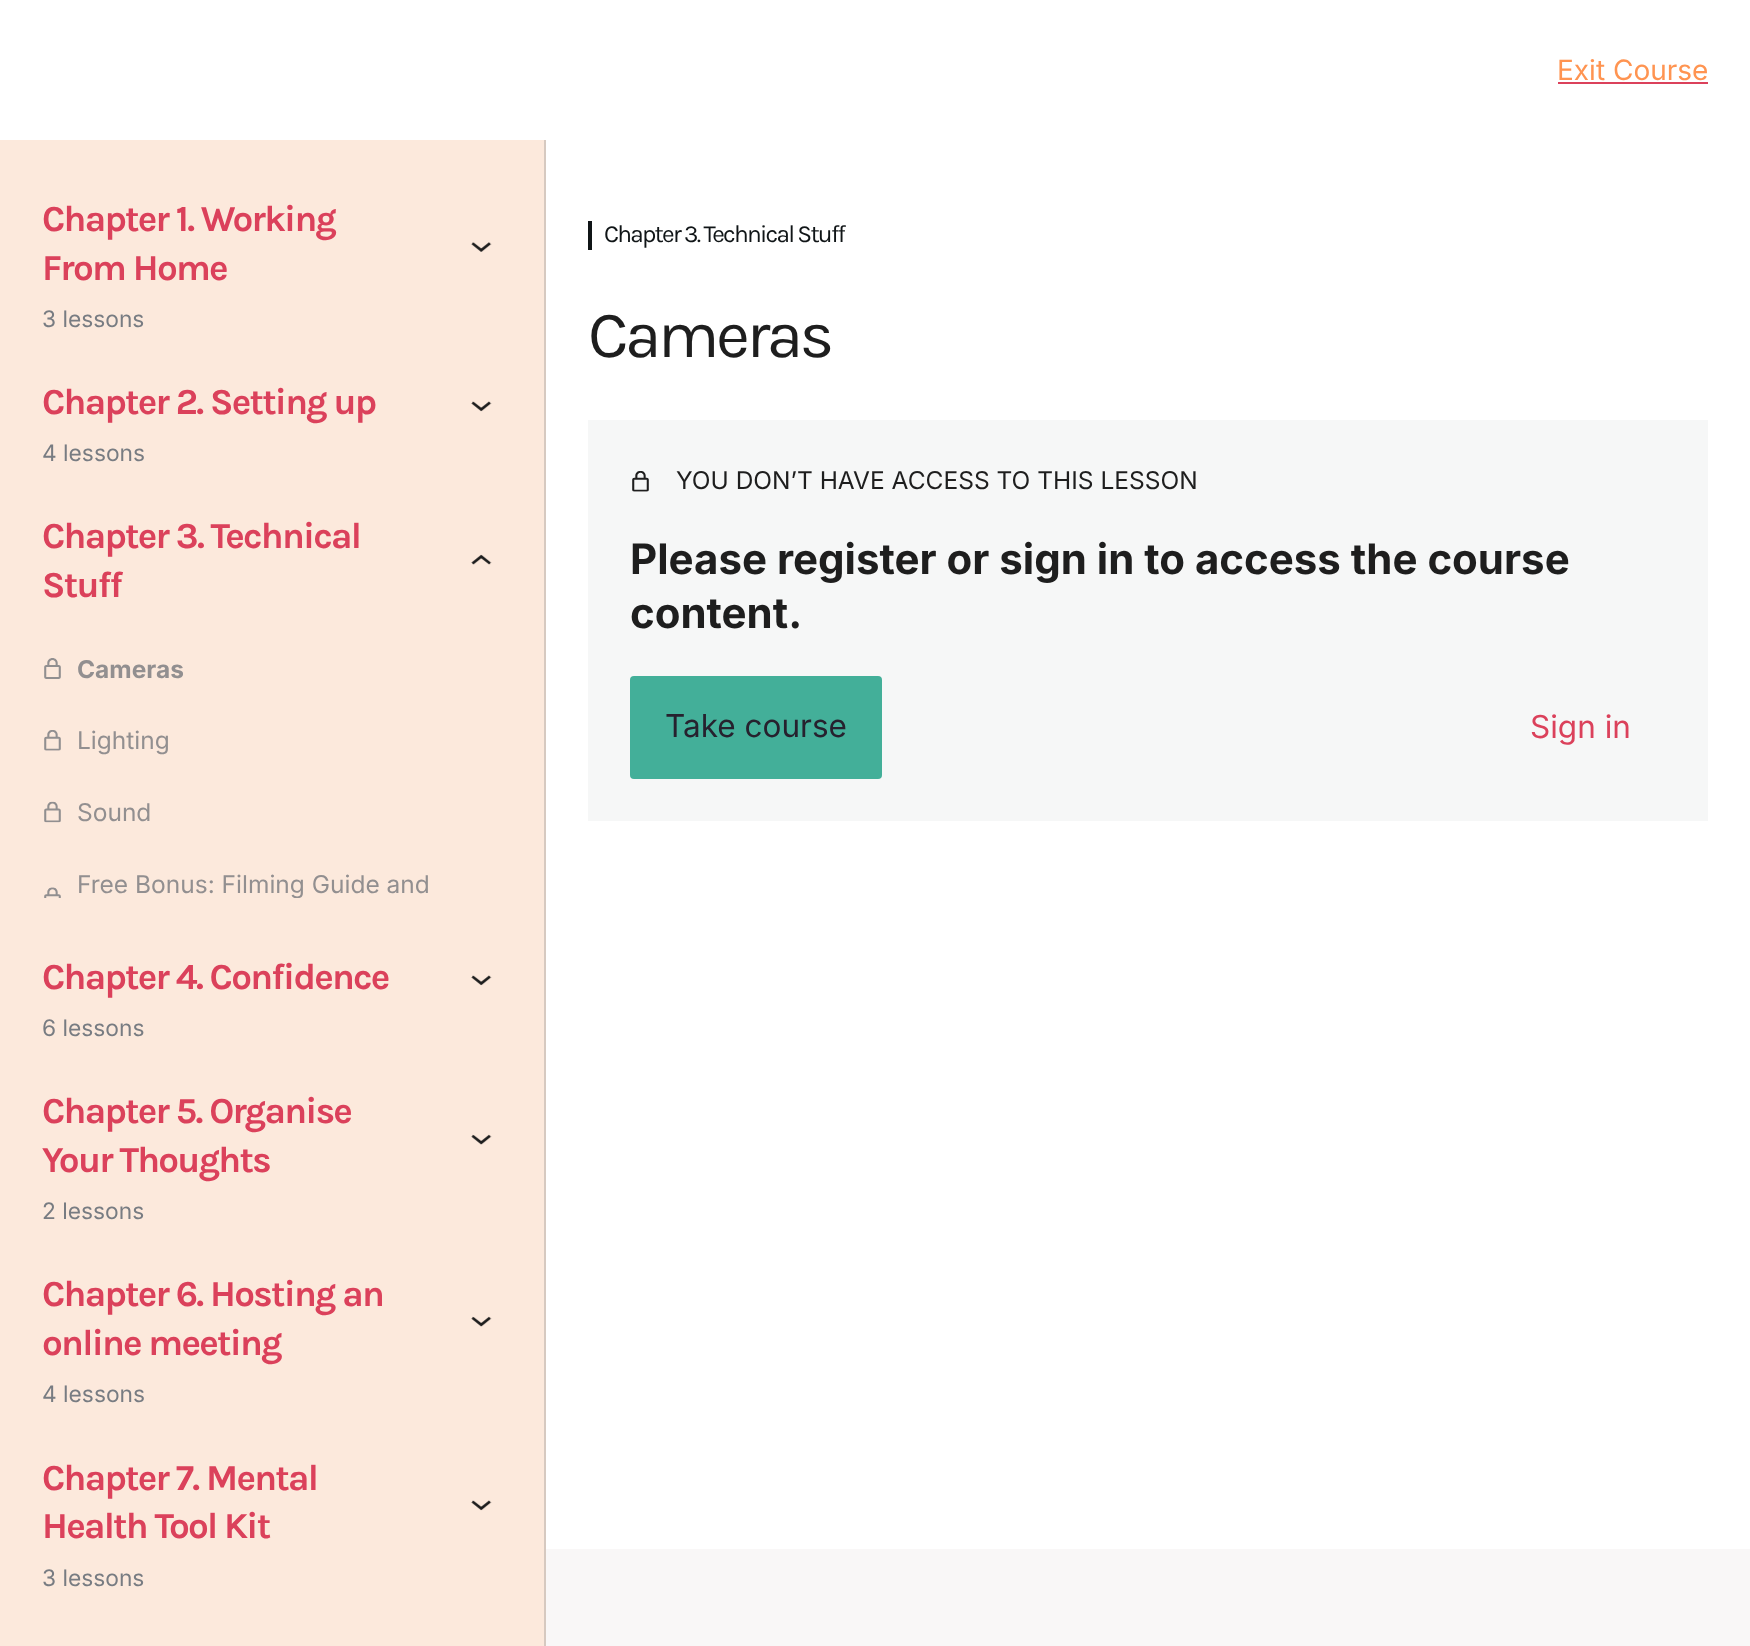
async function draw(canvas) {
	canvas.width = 1750;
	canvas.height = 1646;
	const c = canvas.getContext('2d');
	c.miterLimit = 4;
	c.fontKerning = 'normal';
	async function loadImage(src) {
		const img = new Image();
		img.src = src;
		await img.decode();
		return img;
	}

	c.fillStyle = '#f9f7f7';
	c.fillRect(0, 0, 1750, 1646);
	c.fillStyle = '#fff';
	c.fillRect(546, 140, 1204, 1409);
	c.fillRect(0, 0, 1750, 140);
	c.font = '28px Inter';
	c.fillStyle = '#ff9451';
	c.fillText('Exit Course', 1557, 80);
	for (const [x, y, w, h, color] of [
		[1558, 82, 150, 2, '#db415b'],
		[0, 140, 544, 1506, '#fce9dc'],
		[544, 140, 2, 1506, '#d6c9c0'],
	]) {
		c.fillStyle = color;
		c.fillRect(x, y, w, h);
	}
	c.letterSpacing = '-1.75px';
	c.font = 'bold 36.75px Karla';
	c.fillStyle = '#db415b';
	c.fillText('Chapter 1. Working', 42, 231);
	c.fillText('From Home', 42, 280);
	c.drawImage(await loadImage('img1.png'), 471, 242, 21, 10);
	c.letterSpacing = '0px';
	c.font = '22.75px Inter';
	c.fillStyle = '#787c82';
	c.fillText('3 lessons', 42, 327);
	c.letterSpacing = '-1.75px';
	c.font = 'bold 36.75px Karla';
	c.fillStyle = '#db415b';
	c.fillText('Chapter 2. Setting up', 42, 414);
	c.drawImage(await loadImage('img2.png'), 471, 401, 21, 11);
	c.letterSpacing = '0px';
	c.font = '22.75px Inter';
	c.fillStyle = '#787c82';
	c.fillText('4 lessons', 42, 461);
	c.letterSpacing = '-1.75px';
	c.font = 'bold 36.75px Karla';
	c.fillStyle = '#db415b';
	c.fillText('Chapter 3. Technical', 42, 548);
	c.fillText('Stuff', 42, 597);
	c.drawImage(await loadImage('img3.png'), 471, 554, 21, 11);
	c.drawImage(await loadImage('img4.png'), 44, 658, 17, 21);
	c.letterSpacing = '0px';
	c.font = 'bold 24.5px Inter';
	c.fillStyle = '#928f90';
	c.fillText('Cameras', 77, 678);
	c.drawImage(await loadImage('img5.png'), 44, 730, 17, 21);
	c.font = '24.5px Inter';
	c.fillText('Lighting', 77, 749);
	c.drawImage(await loadImage('img6.png'), 44, 801, 17, 22);
	c.fillText('Sound', 77, 821);
	c.drawImage(await loadImage('img7.png'), 44, 887, 17, 11);
	c.save();
	c.beginPath();
	c.rect(42, 611, 460, 287);
	c.clip();
	c.fillText('Free Bonus: Filming Guide and', 77, 893);
	c.restore();
	c.letterSpacing = '-1.75px';
	c.font = 'bold 36.75px Karla';
	c.fillStyle = '#db415b';
	c.fillText('Chapter 4. Confidence', 42, 989);
	c.drawImage(await loadImage('img2.png'), 471, 975, 21, 11);
	c.letterSpacing = '0px';
	c.font = '22.75px Inter';
	c.fillStyle = '#787c82';
	c.fillText('6 lessons', 42, 1036);
	c.letterSpacing = '-1.75px';
	c.font = 'bold 36.75px Karla';
	c.fillStyle = '#db415b';
	c.fillText('Chapter 5. Organise', 42, 1123);
	c.fillText('Your Thoughts', 42, 1172);
	c.drawImage(await loadImage('img8.png'), 471, 1134, 21, 11);
	c.letterSpacing = '0px';
	c.font = '22.75px Inter';
	c.fillStyle = '#787c82';
	c.fillText('2 lessons', 42, 1219);
	c.letterSpacing = '-1.75px';
	c.font = 'bold 36.75px Karla';
	c.fillStyle = '#db415b';
	c.fillText('Chapter 6. Hosting an', 42, 1306);
	c.fillText('online meeting', 42, 1355);
	c.drawImage(await loadImage('img8.png'), 471, 1316, 21, 11);
	c.letterSpacing = '0px';
	c.font = '22.75px Inter';
	c.fillStyle = '#787c82';
	c.fillText('4 lessons', 42, 1402);
	c.letterSpacing = '-1.75px';
	c.font = 'bold 36.75px Karla';
	c.fillStyle = '#db415b';
	c.fillText('Chapter 7. Mental', 42, 1490);
	c.fillText('Health Tool Kit', 42, 1538);
	c.drawImage(await loadImage('img2.png'), 471, 1500, 21, 11);
	c.letterSpacing = '0px';
	c.font = '22.75px Inter';
	c.fillStyle = '#787c82';
	c.fillText('3 lessons', 42, 1586);
	c.fillStyle = '#101517';
	c.fillRect(588, 221, 4, 29);
	c.letterSpacing = '-1.75px';
	c.font = '24.5px Karla';
	c.fillText('Chapter 3. Technical Stuff', 604, 242);
	c.letterSpacing = '-3.5px';
	c.font = '66px Karla';
	c.fillStyle = '#1e1e1e';
	c.fillText('Cameras', 588, 357);
	c.fillStyle = '#f6f7f7';
	c.fillRect(588, 420, 1120, 401);
	c.drawImage(await loadImage('img9.png'), 632, 471, 17, 21);
	c.letterSpacing = '0px';
	c.font = '24.5px Inter';
	c.fillStyle = '#1e1e1e';
	c.fillText('YOU DON’T HAVE ACCESS TO THIS LESSON', 676, 489);
	c.font = 'bold 42px Inter';
	c.fillText('Please register or sign in to access the course', 630, 574);
	c.fillText('content.', 630, 628);
	c.fillStyle = '#43af99';
	c.beginPath();
	c.roundRect(630, 676, 252, 103, 4);
	c.fill();
	c.font = '31.5px Inter';
	c.fillStyle = '#26212e';
	c.fillText('Take course', 665, 737);
	c.fillStyle = '#db415b';
	c.fillText('Sign in', 1530, 738);
}

draw(document.querySelector('canvas'));
